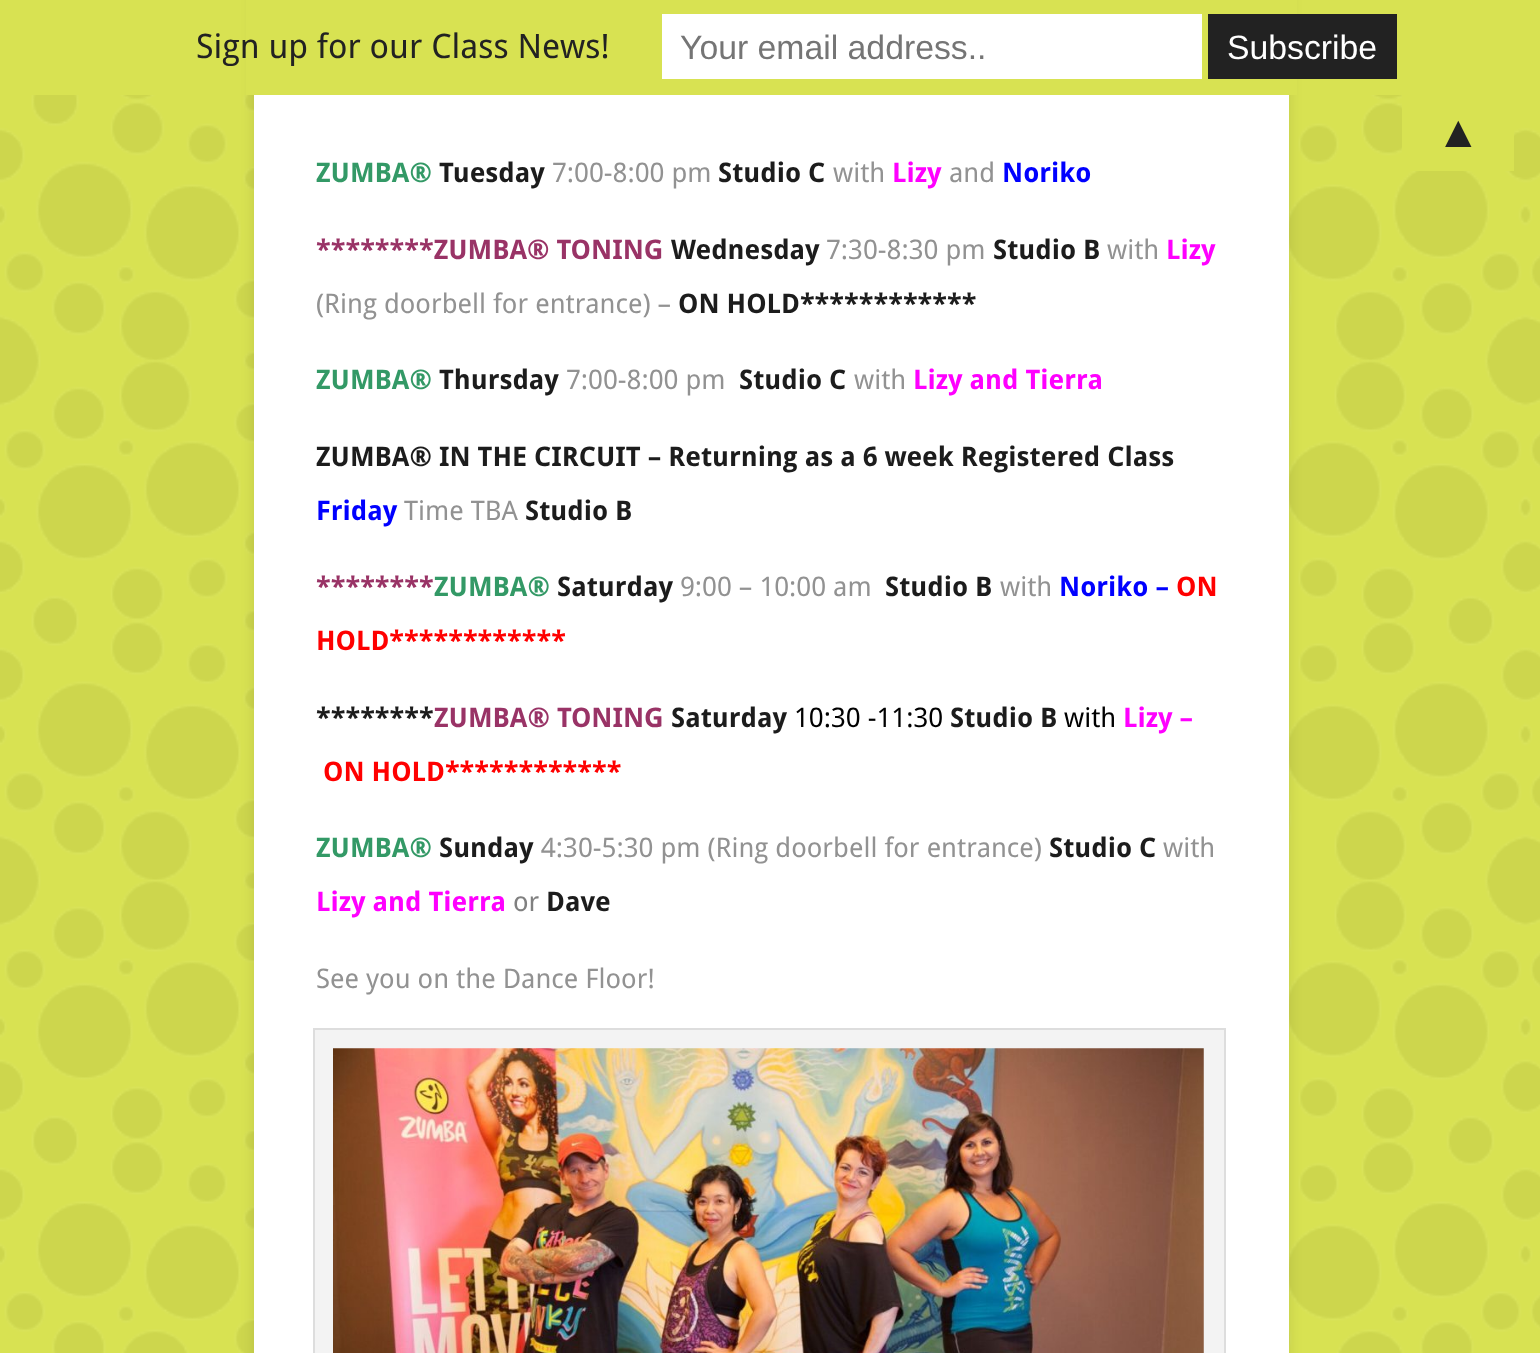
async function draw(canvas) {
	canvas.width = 1540;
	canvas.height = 1353;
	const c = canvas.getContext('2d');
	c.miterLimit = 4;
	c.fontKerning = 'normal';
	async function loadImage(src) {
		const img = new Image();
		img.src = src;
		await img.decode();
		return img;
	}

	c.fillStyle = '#d8e252';
	c.fillRect(0, 0, 1540, 1353);
	c.drawImage(await loadImage('img1.png'), 0, 95, 1540, 1258);
	c.fillStyle = '#0000001a';
	c.filter = 'blur(7px)';
	c.beginPath();
	c.roundRect(254, -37, 1035, 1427, 16);
	c.fill();
	c.filter = 'none';
	c.fillStyle = '#d8e252';
	c.fillRect(246, 0, 1051, 95);
	c.font = '33.75px Droid Sans';
	c.fillStyle = '#222';
	c.fillText('Sign up for our Class News!', 196, 58);
	c.fillStyle = '#fff';
	c.fillRect(662, 14, 540, 65);
	c.font = '33.75px Liberation Sans';
	c.fillStyle = '#757575';
	c.fillText('Your email address..', 680, 59);
	c.fillStyle = '#222';
	c.fillRect(1208, 14, 189, 65);
	c.fillStyle = '#fff';
	c.fillText('Subscribe', 1227, 59);
	c.fillStyle = '#d8e252';
	c.fillRect(1402, 95, 112, 76);
	c.font = '45px Liberation Sans';
	c.fillStyle = '#222';
	c.fillText('▲', 1436, 147);
	c.fillStyle = '#fff';
	c.fillRect(254, 95, 1035, 1258);
	c.font = 'bold 27px Droid Sans';
	c.fillStyle = '#396';
	c.fillText('ZUMBA®', 316, 182);
	c.fillStyle = '#1c1c1c';
	c.fillText('Tuesday', 439, 182);
	c.font = '27px Droid Sans';
	c.fillStyle = '#929292';
	c.fillText('7:00-8:00 pm', 552, 182);
	c.font = 'bold 27px Droid Sans';
	c.fillStyle = '#1c1c1c';
	c.fillText('Studio C', 718, 182);
	c.font = '27px Droid Sans';
	c.fillStyle = '#929292';
	c.fillText('with', 833, 182);
	c.font = 'bold 27px Droid Sans';
	c.fillStyle = '#f0f';
	c.fillText('Lizy', 892, 182);
	c.font = '27px Droid Sans';
	c.fillStyle = '#929292';
	c.fillText('and', 949, 182);
	c.font = 'bold 27px Droid Sans';
	c.fillStyle = '#00f';
	c.fillText('Noriko', 1002, 182);
	c.fillStyle = '#936';
	c.fillText('********ZUMBA® TONING', 316, 259);
	c.fillStyle = '#1c1c1c';
	c.fillText('Wednesday', 671, 259);
	c.font = '27px Droid Sans';
	c.fillStyle = '#929292';
	c.fillText('7:30-8:30 pm', 826, 259);
	c.font = 'bold 27px Droid Sans';
	c.fillStyle = '#1c1c1c';
	c.fillText('Studio B', 993, 259);
	c.font = '27px Droid Sans';
	c.fillStyle = '#929292';
	c.fillText('with', 1107, 259);
	c.font = 'bold 27px Droid Sans';
	c.fillStyle = '#f0f';
	c.fillText('Lizy', 1166, 259);
	c.font = '27px Droid Sans';
	c.fillStyle = '#929292';
	c.fillText('(Ring doorbell for entrance) –', 316, 313);
	c.font = 'bold 27px Droid Sans';
	c.fillStyle = '#1c1c1c';
	c.fillText('ON HOLD************', 678, 313);
	c.fillStyle = '#396';
	c.fillText('ZUMBA®', 316, 389);
	c.fillStyle = '#1c1c1c';
	c.fillText('Thursday', 439, 389);
	c.font = '27px Droid Sans';
	c.fillStyle = '#929292';
	c.fillText('7:00-8:00 pm', 566, 389);
	c.font = 'bold 27px Droid Sans';
	c.fillStyle = '#1c1c1c';
	c.fillText('Studio C', 739, 389);
	c.font = '27px Droid Sans';
	c.fillStyle = '#929292';
	c.fillText('with', 854, 389);
	c.font = 'bold 27px Droid Sans';
	c.fillStyle = '#f0f';
	c.fillText('Lizy and Tierra', 913, 389);
	c.fillStyle = '#1c1c1c';
	c.fillText('ZUMBA® IN THE CIRCUIT – Returning as a 6 week Registered Class', 316, 466);
	c.fillStyle = '#00f';
	c.fillText('Friday', 316, 520);
	c.font = '27px Droid Sans';
	c.fillStyle = '#929292';
	c.fillText('Time TBA', 404, 520);
	c.font = 'bold 27px Droid Sans';
	c.fillStyle = '#1c1c1c';
	c.fillText('Studio B', 525, 520);
	c.fillStyle = '#936';
	c.fillText('********', 316, 596);
	c.fillStyle = '#396';
	c.fillText('ZUMBA®', 434, 596);
	c.fillStyle = '#1c1c1c';
	c.fillText('Saturday', 557, 596);
	c.font = '27px Droid Sans';
	c.fillStyle = '#929292';
	c.fillText('9:00 – 10:00 am', 680, 596);
	c.font = 'bold 27px Droid Sans';
	c.fillStyle = '#1c1c1c';
	c.fillText('Studio B', 885, 596);
	c.font = '27px Droid Sans';
	c.fillStyle = '#929292';
	c.fillText('with', 1000, 596);
	c.font = 'bold 27px Droid Sans';
	c.fillStyle = '#00f';
	c.fillText('Noriko –', 1059, 596);
	c.fillStyle = '#f00';
	c.fillText('ON', 1176, 596);
	c.fillText('HOLD************', 316, 650);
	c.fillStyle = '#1c1c1c';
	c.fillText('********', 316, 727);
	c.fillStyle = '#936';
	c.fillText('ZUMBA® TONING', 434, 727);
	c.fillStyle = '#1c1c1c';
	c.fillText('Saturday', 671, 727);
	c.font = '27px Droid Sans';
	c.fillStyle = '#000';
	c.fillText('10:30 -11:30', 794, 727);
	c.font = 'bold 27px Droid Sans';
	c.fillStyle = '#1c1c1c';
	c.fillText('Studio B', 950, 727);
	c.font = '27px Droid Sans';
	c.fillStyle = '#000';
	c.fillText('with', 1064, 727);
	c.font = 'bold 27px Droid Sans';
	c.fillStyle = '#f0f';
	c.fillText('Lizy –', 1123, 727);
	c.fillStyle = '#f00';
	c.fillText('ON HOLD************', 323, 781);
	c.fillStyle = '#396';
	c.fillText('ZUMBA®', 316, 857);
	c.fillStyle = '#1c1c1c';
	c.fillText('Sunday', 439, 857);
	c.font = '27px Droid Sans';
	c.fillStyle = '#929292';
	c.fillText('4:30-5:30 pm (Ring doorbell for entrance)', 541, 857);
	c.font = 'bold 27px Droid Sans';
	c.fillStyle = '#1c1c1c';
	c.fillText('Studio C', 1049, 857);
	c.font = '27px Droid Sans';
	c.fillStyle = '#929292';
	c.fillText('with', 1163, 857);
	c.font = 'bold 27px Droid Sans';
	c.fillStyle = '#f0f';
	c.fillText('Lizy and Tierra', 316, 911);
	c.font = '27px Droid Sans';
	c.fillStyle = '#808080';
	c.fillText('or', 513, 911);
	c.font = 'bold 27px Droid Sans';
	c.fillStyle = '#1c1c1c';
	c.fillText('Dave', 546, 911);
	c.font = '27px Droid Sans';
	c.fillStyle = '#929292';
	c.fillText('See you on the Dance Floor!', 316, 988);
	c.fillStyle = '#f3f3f3';
	c.beginPath();
	c.rect(314, 1029, 911, 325);
	c.fill();
	c.strokeStyle = '#ddd';
	c.lineWidth = 2;
	c.stroke();
	c.drawImage(await loadImage('img2.png'), 333, 1048, 871, 305);
}

draw(document.querySelector('canvas'));
